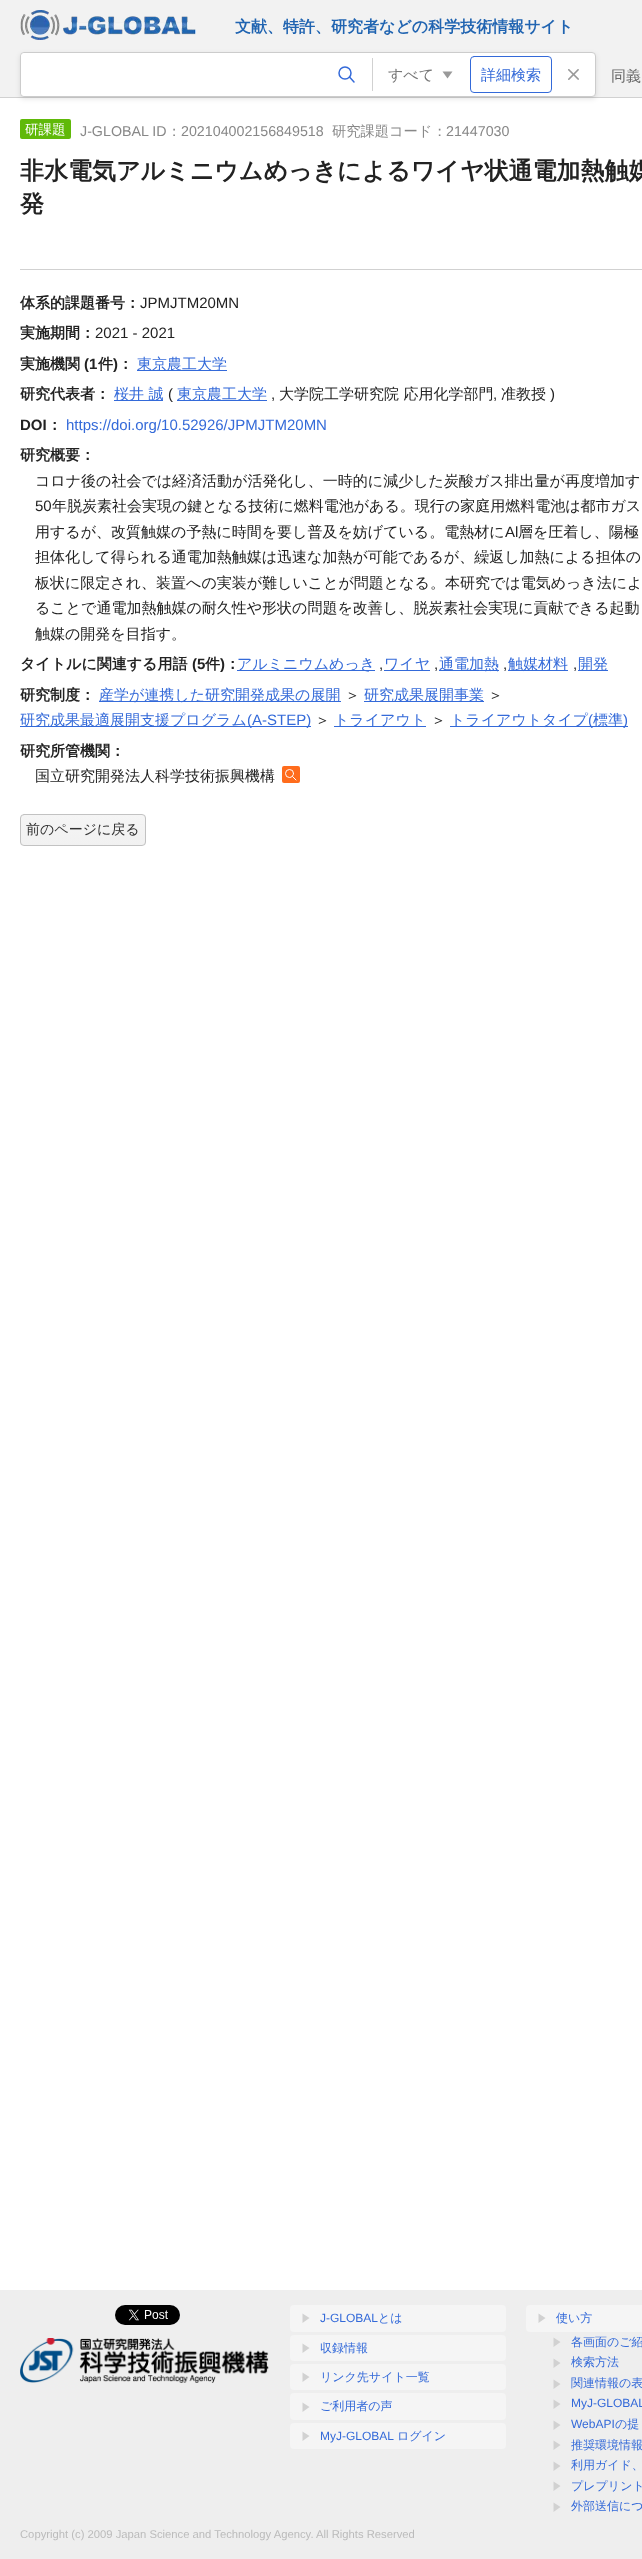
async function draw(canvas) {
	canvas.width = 642;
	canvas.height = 2559;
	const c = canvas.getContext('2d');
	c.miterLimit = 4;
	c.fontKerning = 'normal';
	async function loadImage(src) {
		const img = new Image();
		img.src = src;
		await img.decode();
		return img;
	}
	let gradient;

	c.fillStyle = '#fff';
	c.fillRect(0, 0, 642, 2559);
	c.fillStyle = '#f2f2f2';
	c.fillRect(0, 0, 642, 97);
	c.drawImage(await loadImage('img1.png'), 20, 10, 176, 30);
	c.font = 'bold 16px WenQuanYi Zen Hei';
	c.fillStyle = '#2064b1';
	c.fillText('文献、特許、研究者などの科学技術情報サイト', 235, 32);
	c.fillStyle = '#d1d1d1';
	c.fillRect(0, 97, 642, 1);
	c.fillStyle = '#0000001a';
	c.filter = 'blur(2.5px)';
	c.beginPath();
	c.roundRect(20, 54, 576, 45, 4);
	c.fill();
	c.filter = 'none';
	c.fillStyle = '#fff';
	c.beginPath();
	c.roundRect(20.5, 52.5, 575, 44, 3.5);
	c.fill();
	c.strokeStyle = '#ccc';
	c.stroke();
	c.save();
	c.beginPath();
	c.roundRect(21, 53, 574, 43, 3);
	c.clip();
	c.beginPath();
	c.roundRect(21, 53, 301, 43, 4);
	c.fill();
	c.restore();
	c.beginPath();
	c.arc(345, 73, 6, 0, 2 * Math.PI);
	c.strokeStyle = '#346ad9';
	c.lineWidth = 1.5;
	c.stroke();
	c.beginPath();
	c.moveTo(349.5, 77);
	c.lineTo(354, 82);
	c.lineCap = 'round';
	c.lineJoin = 'round';
	c.stroke();
	c.fillStyle = '#999';
	c.beginPath();
	c.moveTo(452.5, 71.5);
	c.lineTo(447.5, 78.5);
	c.lineTo(442.5, 71.5);
	c.closePath();
	c.fill();
	c.fillStyle = '#d1d1d1';
	c.fillRect(372, 58, 1, 33);
	c.font = '500 15px WenQuanYi Zen Hei';
	c.fillStyle = '#777';
	c.fillText('すべて', 388, 80);
	c.beginPath();
	c.roundRect(470.5, 56.5, 81, 36, 3.5);
	c.lineWidth = 1;
	c.lineJoin = 'miter';
	c.stroke();
	c.fillStyle = '#346ad9';
	c.fillText('詳細検索', 481, 80);
	c.drawImage(await loadImage('img2.png'), 568, 69, 11, 11);
	c.fillStyle = '#666';
	c.fillText('同義', 611, 81);
	c.fillStyle = '#d1d1d1';
	c.fillRect(20, 269, 622, 1);
	c.fillStyle = '#60b909';
	c.beginPath();
	c.roundRect(20, 119, 51, 20, 2);
	c.fill();
	c.font = '500 13.5px WenQuanYi Zen Hei';
	c.fillStyle = '#fff';
	c.fillText('研課題', 25, 134);
	c.font = '14.25px Liberation Sans';
	c.fillStyle = '#888';
	c.fillText('J-GLOBAL ID', 80, 136);
	c.font = '500 14.25px WenQuanYi Zen Hei';
	c.fillText('：', 167, 136);
	c.font = '14.25px Liberation Sans';
	c.fillText('202104002156849518', 181, 136);
	c.font = '500 14.25px WenQuanYi Zen Hei';
	c.fillText('研究課題コード：', 332, 136);
	c.font = '14.25px Liberation Sans';
	c.fillText('21447030', 446, 136);
	c.font = 'bold 24px WenQuanYi Zen Hei';
	c.fillStyle = '#222';
	c.fillText('非水電気アルミニウムめっきによるワイヤ状通電加熱触媒', 20, 179);
	c.fillText('発', 20, 212);
	c.font = 'bold 15px WenQuanYi Zen Hei';
	c.fillText('体系的課題番号：', 20, 308);
	c.font = '15px Liberation Sans';
	c.fillText('JPMJTM20MN', 140, 308);
	c.font = 'bold 15px WenQuanYi Zen Hei';
	c.fillText('実施期間：', 20, 338);
	c.font = '15px Liberation Sans';
	c.fillText('2021 - 2021', 95, 338);
	c.font = 'bold 15px WenQuanYi Zen Hei';
	c.fillText('実施機関', 20, 369);
	c.font = 'bold 15px Liberation Sans';
	c.fillText('(1', 84, 369);
	c.font = 'bold 15px WenQuanYi Zen Hei';
	c.fillText('件', 98, 369);
	c.font = 'bold 15px Liberation Sans';
	c.fillText(')', 113, 369);
	c.font = 'bold 15px WenQuanYi Zen Hei';
	c.fillText('：', 118, 369);
	c.fillStyle = '#346ad9';
	c.fillRect(137, 370, 90, 1);
	c.font = '500 15px WenQuanYi Zen Hei';
	c.fillText('東京農工大学', 137, 369);
	c.font = 'bold 15px WenQuanYi Zen Hei';
	c.fillStyle = '#222';
	c.fillText('研究代表者：', 20, 399);
	c.fillStyle = '#346ad9';
	c.fillRect(114, 400, 49, 1);
	c.font = '500 15px WenQuanYi Zen Hei';
	c.fillText('桜井 誠', 114, 399);
	c.font = '15px Liberation Sans';
	c.fillStyle = '#222';
	c.fillText('(', 168, 399);
	c.fillStyle = '#346ad9';
	c.fillRect(177, 400, 90, 1);
	c.font = '500 15px WenQuanYi Zen Hei';
	c.fillText('東京農工大学', 177, 399);
	c.font = '15px Liberation Sans';
	c.fillStyle = '#222';
	c.fillText(',', 271, 399);
	c.font = '500 15px WenQuanYi Zen Hei';
	c.fillText('大学院工学研究院 応用化学部門', 279, 399);
	c.font = '15px Liberation Sans';
	c.fillText(',', 493, 399);
	c.font = '500 15px WenQuanYi Zen Hei';
	c.fillText('准教授', 501, 399);
	c.font = '15px Liberation Sans';
	c.fillText(')', 550, 399);
	c.font = 'bold 15px Liberation Sans';
	c.fillText('DOI', 20, 430);
	c.font = 'bold 15px WenQuanYi Zen Hei';
	c.fillText('：', 47, 430);
	c.font = '15px Liberation Sans';
	c.fillStyle = '#346ad9';
	c.fillText('https://doi.org/10.52926/JPMJTM20MN', 66, 430);
	c.font = 'bold 15px WenQuanYi Zen Hei';
	c.fillStyle = '#222';
	c.fillText('研究概要：', 20, 460);
	c.font = '500 15px WenQuanYi Zen Hei';
	c.fillText('コロナ後の社会では経済活動が活発化し、一時的に減少した炭酸ガス排出量が再度増加す', 35, 486);
	c.font = '15px Liberation Sans';
	c.fillText('50', 35, 511);
	c.font = '500 15px WenQuanYi Zen Hei';
	c.fillText('年脱炭素社会実現の鍵となる技術に燃料電池がある。現行の家庭用燃料電池は都市ガス', 52, 511);
	c.fillText('用するが、改質触媒の予熱に時間を要し普及を妨げている。電熱材に', 35, 537);
	c.font = '15px Liberation Sans';
	c.fillText('Al', 505, 537);
	c.font = '500 15px WenQuanYi Zen Hei';
	for (const [text, x, y] of [
		['層を圧着し、陽極', 518, 537],
		['担体化して得られる通電加熱触媒は迅速な加熱が可能であるが、繰返し加熱による担体の', 35, 562],
		['板状に限定され、装置への実装が難しいことが問題となる。本研究では電気めっき法によ', 35, 588],
		['ることで通電加熱触媒の耐久性や形状の問題を改善し、脱炭素社会実現に貢献できる起動', 35, 613],
		['触媒の開発を目指す。', 35, 639],
	]) {
		c.fillText(text, x, y);
	}
	c.font = 'bold 15px WenQuanYi Zen Hei';
	c.fillText('タイトルに関連する用語', 20, 669);
	c.font = 'bold 15px Liberation Sans';
	c.fillText('(5', 192, 669);
	c.font = 'bold 15px WenQuanYi Zen Hei';
	c.fillText('件', 205, 669);
	c.font = 'bold 15px Liberation Sans';
	c.fillText(')', 220, 669);
	c.font = 'bold 15px WenQuanYi Zen Hei';
	c.fillText('：', 225, 669);
	c.fillStyle = '#346ad9';
	c.fillRect(237, 670, 138, 1);
	c.font = '500 15px WenQuanYi Zen Hei';
	c.fillText('アルミニウムめっき', 237, 669);
	c.font = '15px Liberation Sans';
	c.fillStyle = '#222';
	c.fillText(',', 379, 669);
	c.fillStyle = '#346ad9';
	c.fillRect(384, 670, 46, 1);
	c.font = '500 15px WenQuanYi Zen Hei';
	c.fillText('ワイヤ', 384, 669);
	c.font = '15px Liberation Sans';
	c.fillStyle = '#222';
	c.fillText(',', 434, 669);
	c.fillStyle = '#346ad9';
	c.fillRect(439, 670, 60, 1);
	c.font = '500 15px WenQuanYi Zen Hei';
	c.fillText('通電加熱', 439, 669);
	c.font = '15px Liberation Sans';
	c.fillStyle = '#222';
	c.fillText(',', 503, 669);
	c.fillStyle = '#346ad9';
	c.fillRect(508, 670, 60, 1);
	c.font = '500 15px WenQuanYi Zen Hei';
	c.fillText('触媒材料', 508, 669);
	c.font = '15px Liberation Sans';
	c.fillStyle = '#222';
	c.fillText(',', 573, 669);
	c.fillStyle = '#346ad9';
	c.fillRect(578, 670, 30, 1);
	c.font = '500 15px WenQuanYi Zen Hei';
	c.fillText('開発', 578, 669);
	c.font = 'bold 15px WenQuanYi Zen Hei';
	c.fillStyle = '#222';
	c.fillText('研究制度：', 20, 700);
	c.fillStyle = '#346ad9';
	c.fillRect(99, 701, 242, 1);
	c.font = '500 15px WenQuanYi Zen Hei';
	c.fillText('産学が連携した研究開発成果の展開', 99, 700);
	c.fillStyle = '#222';
	c.fillText('＞', 345, 700);
	c.fillStyle = '#346ad9';
	c.fillRect(364, 701, 120, 1);
	c.fillText('研究成果展開事業', 364, 700);
	c.fillStyle = '#222';
	c.fillText('＞', 488, 700);
	c.fillStyle = '#346ad9';
	c.fillRect(20, 726, 291, 1);
	c.fillText('研究成果最適展開支援プログラム', 20, 725);
	c.font = '15px Liberation Sans';
	c.fillText('(A-STEP)', 247, 725);
	c.font = '500 15px WenQuanYi Zen Hei';
	c.fillStyle = '#222';
	c.fillText('＞', 315, 725);
	c.fillStyle = '#346ad9';
	c.fillRect(334, 726, 92, 1);
	c.fillText('トライアウト', 334, 725);
	c.fillStyle = '#222';
	c.fillText('＞', 431, 725);
	c.fillStyle = '#346ad9';
	c.fillRect(450, 726, 178, 1);
	c.fillText('トライアウトタイプ', 450, 725);
	c.font = '15px Liberation Sans';
	c.fillText('(', 588, 725);
	c.font = '500 15px WenQuanYi Zen Hei';
	c.fillText('標準', 593, 725);
	c.font = '15px Liberation Sans';
	c.fillText(')', 623, 725);
	c.font = 'bold 15px WenQuanYi Zen Hei';
	c.fillStyle = '#222';
	c.fillText('研究所管機関：', 20, 756);
	c.font = '500 15px WenQuanYi Zen Hei';
	c.fillText('国立研究開発法人科学技術振興機構', 35, 781);
	c.fillStyle = '#ff6c1c';
	c.beginPath();
	c.roundRect(282, 766, 18, 17, 2);
	c.fill();
	c.beginPath();
	c.arc(289.5, 773.5, 4, 0, 2 * Math.PI);
	c.strokeStyle = '#fff';
	c.stroke();
	c.beginPath();
	c.moveTo(292.5, 776.5);
	c.lineTo(296, 780);
	c.lineJoin = 'round';
	c.stroke();
	c.save();
	c.beginPath();
	c.roundRect(20, 814, 126, 32, 4);
	c.clip();
	gradient = c.createLinearGradient(83, 815, 83, 845);
	gradient.addColorStop(0, '#f5f5f5');
	gradient.addColorStop(1, '#f1f1f1');
	c.fillStyle = gradient;
	c.fillRect(20, 815, 126, 30);
	c.restore();
	c.beginPath();
	c.roundRect(20.5, 814.5, 125, 31, 3.5);
	c.strokeStyle = '#c2c2c2';
	c.lineJoin = 'miter';
	c.stroke();
	c.font = '500 14px WenQuanYi Zen Hei';
	c.fillStyle = '#333';
	c.fillText('前のページに戻る', 26, 834);
	c.fillStyle = '#eee';
	c.fillRect(0, 2290, 642, 269);
	c.drawImage(await loadImage('img3.png'), 115, 2305, 65, 20);
	c.drawImage(await loadImage('img4.png'), 20, 2338, 249, 45);
	c.fillStyle = '#f5f5f5';
	c.beginPath();
	c.roundRect(290, 2305, 216, 27, 4);
	c.fill();
	c.fillStyle = '#d1d1d1';
	c.beginPath();
	c.moveTo(302.5, 2313.5);
	c.lineTo(309.5, 2318);
	c.lineTo(302.5, 2323);
	c.closePath();
	c.fill();
	c.font = '12px Liberation Sans';
	c.fillStyle = '#346ad9';
	c.fillText('J-GLOBAL', 320, 2322);
	c.font = '500 12px WenQuanYi Zen Hei';
	c.fillText('とは', 378, 2322);
	c.fillStyle = '#f5f5f5';
	c.beginPath();
	c.roundRect(290, 2335, 216, 26, 4);
	c.fill();
	c.fillStyle = '#d1d1d1';
	c.beginPath();
	c.moveTo(302.5, 2343.5);
	c.lineTo(309.5, 2348);
	c.lineTo(302.5, 2353);
	c.closePath();
	c.fill();
	c.fillStyle = '#346ad9';
	c.fillText('収録情報', 320, 2352);
	c.fillStyle = '#f5f5f5';
	c.beginPath();
	c.roundRect(290, 2364, 216, 26, 4);
	c.fill();
	c.fillStyle = '#d1d1d1';
	c.beginPath();
	c.moveTo(302.5, 2372.5);
	c.lineTo(309.5, 2377);
	c.lineTo(302.5, 2382);
	c.closePath();
	c.fill();
	c.fillStyle = '#346ad9';
	c.fillText('リンク先サイト一覧', 320, 2381);
	c.fillStyle = '#f5f5f5';
	c.beginPath();
	c.roundRect(290, 2393, 216, 27, 4);
	c.fill();
	c.fillStyle = '#d1d1d1';
	c.beginPath();
	c.moveTo(302.5, 2402.5);
	c.lineTo(309.5, 2407);
	c.lineTo(302.5, 2412);
	c.closePath();
	c.fill();
	c.fillStyle = '#346ad9';
	c.fillText('ご利用者の声', 320, 2410);
	c.fillStyle = '#f5f5f5';
	c.beginPath();
	c.roundRect(290, 2423, 216, 26, 4);
	c.fill();
	c.fillStyle = '#d1d1d1';
	c.beginPath();
	c.moveTo(302.5, 2431.5);
	c.lineTo(309.5, 2436);
	c.lineTo(302.5, 2441);
	c.closePath();
	c.fill();
	c.font = '12px Liberation Sans';
	c.fillStyle = '#346ad9';
	c.fillText('MyJ-GLOBAL', 320, 2440);
	c.font = '500 12px WenQuanYi Zen Hei';
	c.fillText('ログイン', 397, 2440);
	c.fillStyle = '#f5f5f5';
	c.beginPath();
	c.roundRect(526, 2305, 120, 27, 4);
	c.fill();
	c.fillStyle = '#d1d1d1';
	c.beginPath();
	c.moveTo(538.5, 2313.5);
	c.lineTo(545.5, 2318);
	c.lineTo(538.5, 2323);
	c.closePath();
	c.moveTo(553.5, 2337.5);
	c.lineTo(560.5, 2342);
	c.lineTo(553.5, 2347);
	c.closePath();
	c.moveTo(553.5, 2358.5);
	c.lineTo(560.5, 2363);
	c.lineTo(553.5, 2368);
	c.closePath();
	c.fill();
	c.fillStyle = '#346ad9';
	for (const [text, x, y] of [
		['使い方', 556, 2322],
		['各画面のご紹', 571, 2346],
		['検索方法', 571, 2366],
	]) {
		c.fillText(text, x, y);
	}
	c.fillStyle = '#d1d1d1';
	c.beginPath();
	c.moveTo(553.5, 2379.5);
	c.lineTo(560.5, 2384);
	c.lineTo(553.5, 2389);
	c.closePath();
	c.moveTo(553.5, 2399.5);
	c.lineTo(560.5, 2404);
	c.lineTo(553.5, 2409);
	c.closePath();
	c.moveTo(553.5, 2420.5);
	c.lineTo(560.5, 2425);
	c.lineTo(553.5, 2430);
	c.closePath();
	c.fill();
	c.fillStyle = '#346ad9';
	c.fillText('関連情報の表', 571, 2387);
	c.font = '12px Liberation Sans';
	c.fillText('MyJ-GLOBAL', 571, 2407);
	c.fillText('WebAPI', 571, 2428);
	c.font = '500 12px WenQuanYi Zen Hei';
	c.fillText('の提', 615, 2428);
	c.fillStyle = '#d1d1d1';
	c.beginPath();
	c.moveTo(553.5, 2440.5);
	c.lineTo(560.5, 2445);
	c.lineTo(553.5, 2450);
	c.closePath();
	c.moveTo(553.5, 2461.5);
	c.lineTo(560.5, 2466);
	c.lineTo(553.5, 2471);
	c.closePath();
	c.moveTo(553.5, 2481.5);
	c.lineTo(560.5, 2486);
	c.lineTo(553.5, 2491);
	c.closePath();
	c.fill();
	c.fillStyle = '#346ad9';
	for (const [text, x, y] of [
		['推奨環境情報', 571, 2449],
		['利用ガイド、', 571, 2469],
		['プレプリント', 571, 2490],
	]) {
		c.fillText(text, x, y);
	}
	c.fillStyle = '#d1d1d1';
	c.beginPath();
	c.moveTo(553.5, 2502.5);
	c.lineTo(560.5, 2507);
	c.lineTo(553.5, 2512);
	c.closePath();
	c.fill();
	c.fillStyle = '#346ad9';
	c.fillText('外部送信につ', 571, 2510);
	c.font = '11.25px Liberation Sans';
	c.fillStyle = '#bbb';
	c.fillText('Copyright (c) 2009 Japan Science and Technology Agency. All Rights Reserved', 20, 2538);
}

draw(document.querySelector('canvas'));
